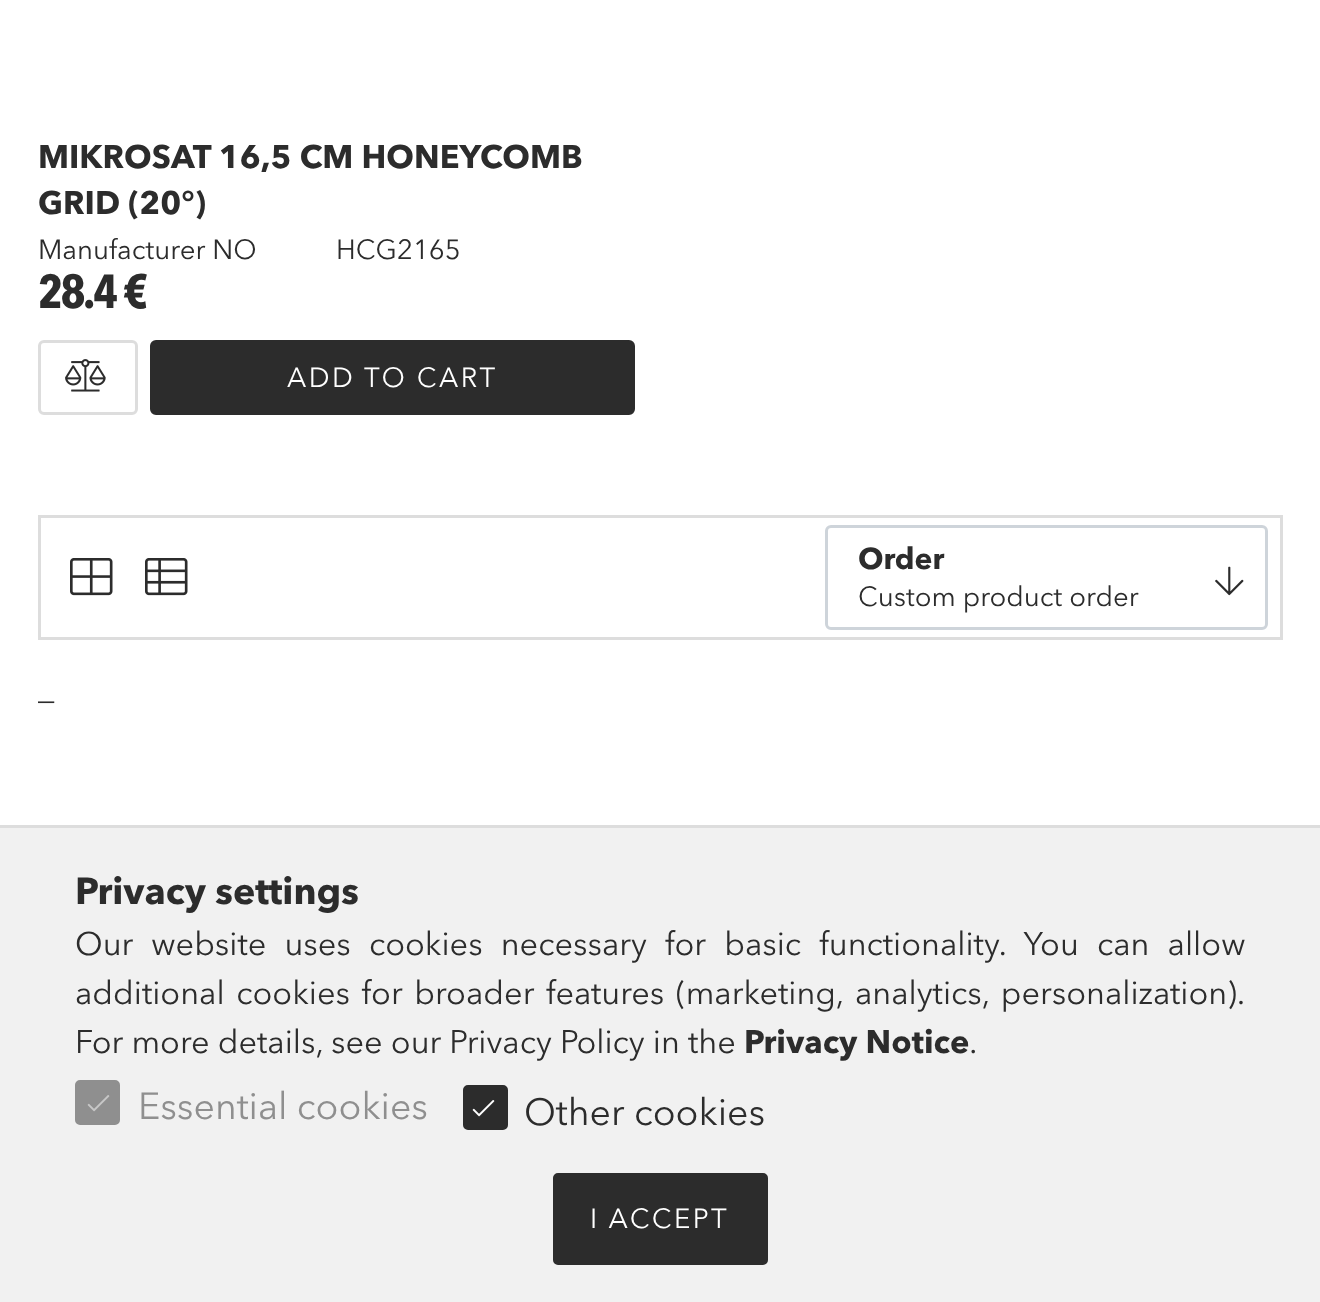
async function draw(canvas) {
	canvas.width = 1320;
	canvas.height = 1302;
	const c = canvas.getContext('2d');
	c.miterLimit = 4;
	c.fontKerning = 'normal';
	async function loadImage(src) {
		const img = new Image();
		img.src = src;
		await img.decode();
		return img;
	}

	c.fillStyle = '#fff';
	c.fillRect(0, 0, 1320, 1302);
	c.font = 'bold 32.5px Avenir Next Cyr';
	c.fillStyle = '#2c2c2c';
	c.fillText('MIKROSAT 16,5 CM HONEYCOMB', 38, 168);
	c.fillText('GRID (20°)', 38, 214);
	c.font = '27.5px Avenir Next Cyr';
	c.fillText('Manufacturer NO', 38, 259);
	c.fillText('HCG2165', 336, 259);
	c.letterSpacing = '-2.5px';
	c.font = 'bold 47.5px Avenir Next';
	c.fillText('28.4 €', 38, 308);
	c.beginPath();
	c.roundRect(39.5, 341.5, 97, 72, 4.5);
	c.strokeStyle = '#ddd';
	c.lineWidth = 3;
	c.stroke();
	c.drawImage(await loadImage('img1.png'), 65, 359, 41, 33);
	c.beginPath();
	c.roundRect(151.5, 341.5, 482, 72, 4.5);
	c.fill();
	c.strokeStyle = '#2c2c2c';
	c.stroke();
	c.letterSpacing = '2.5px';
	c.font = '27.5px Avenir Next Cyr';
	c.fillStyle = '#fff';
	c.fillText('ADD TO CART', 287, 387);
	c.strokeStyle = '#ddd';
	c.strokeRect(39.5, 516.5, 1242, 122);
	c.drawImage(await loadImage('img2.png'), 70, 558, 43, 38);
	c.drawImage(await loadImage('img3.png'), 145, 558, 43, 38);
	c.beginPath();
	c.roundRect(826.5, 526.5, 440, 102, 4.5);
	c.strokeStyle = '#ced4da';
	c.stroke();
	c.letterSpacing = '0px';
	c.font = 'bold 30px Avenir Next Cyr';
	c.fillStyle = '#2c2c2c';
	c.fillText('Order', 858, 569);
	c.drawImage(await loadImage('img4.png'), 1215, 566, 29, 30);
	c.font = '27.5px Avenir Next Cyr';
	c.fillText('Custom product order', 858, 606);
	c.font = '32.5px Avenir Next Cyr';
	c.fillText('_', 38, 699);
	c.fillStyle = '#f1f1f1';
	c.fillRect(0, 828, 1320, 474);
	c.fillStyle = '#ddd';
	c.fillRect(0, 825, 1320, 3);
	c.font = 'bold 37.5px Avenir Next Cyr';
	c.fillStyle = '#2c2c2c';
	c.fillText('Privacy settings', 75, 904);
	c.wordSpacing = '10px';
	c.font = '32.5px Avenir Next Cyr';
	c.fillText('Our website uses cookies necessary for basic functionality. You can allow', 75, 955);
	c.wordSpacing = '3.5px';
	c.fillText('additional cookies for broader features (marketing, analytics, personalization).', 75, 1004);
	c.wordSpacing = '0px';
	c.fillText('For more details, see our Privacy Policy in the', 75, 1053);
	c.font = 'bold 32.5px Avenir Next Cyr';
	c.fillText('Privacy Notice', 744, 1053);
	c.font = '32.5px Avenir Next Cyr';
	c.fillText('.', 969, 1053);
	c.fillStyle = '#8f8f8f';
	c.beginPath();
	c.roundRect(76.5, 1081.5, 42, 42, 3.5);
	c.fill();
	c.strokeStyle = '#8f8f8f';
	c.stroke();
	c.drawImage(await loadImage('img5.png'), 87, 1095, 23, 17);
	c.font = '37.5px Avenir Next Cyr';
	c.fillText('Essential cookies', 138, 1119);
	c.fillStyle = '#2c2c2c';
	c.beginPath();
	c.roundRect(464.5, 1086.5, 42, 42, 3.5);
	c.fill();
	c.strokeStyle = '#2c2c2c';
	c.stroke();
	c.drawImage(await loadImage('img6.png'), 472, 1100, 23, 17);
	c.fillText('Other cookies', 524, 1125);
	c.beginPath();
	c.roundRect(554.5, 1174.5, 212, 89, 3.5);
	c.fill();
	c.stroke();
	c.letterSpacing = '2.5px';
	c.font = '27.5px Avenir Next Cyr';
	c.fillStyle = '#fff';
	c.fillText('I ACCEPT', 590, 1228);
}

draw(document.querySelector('canvas'));
